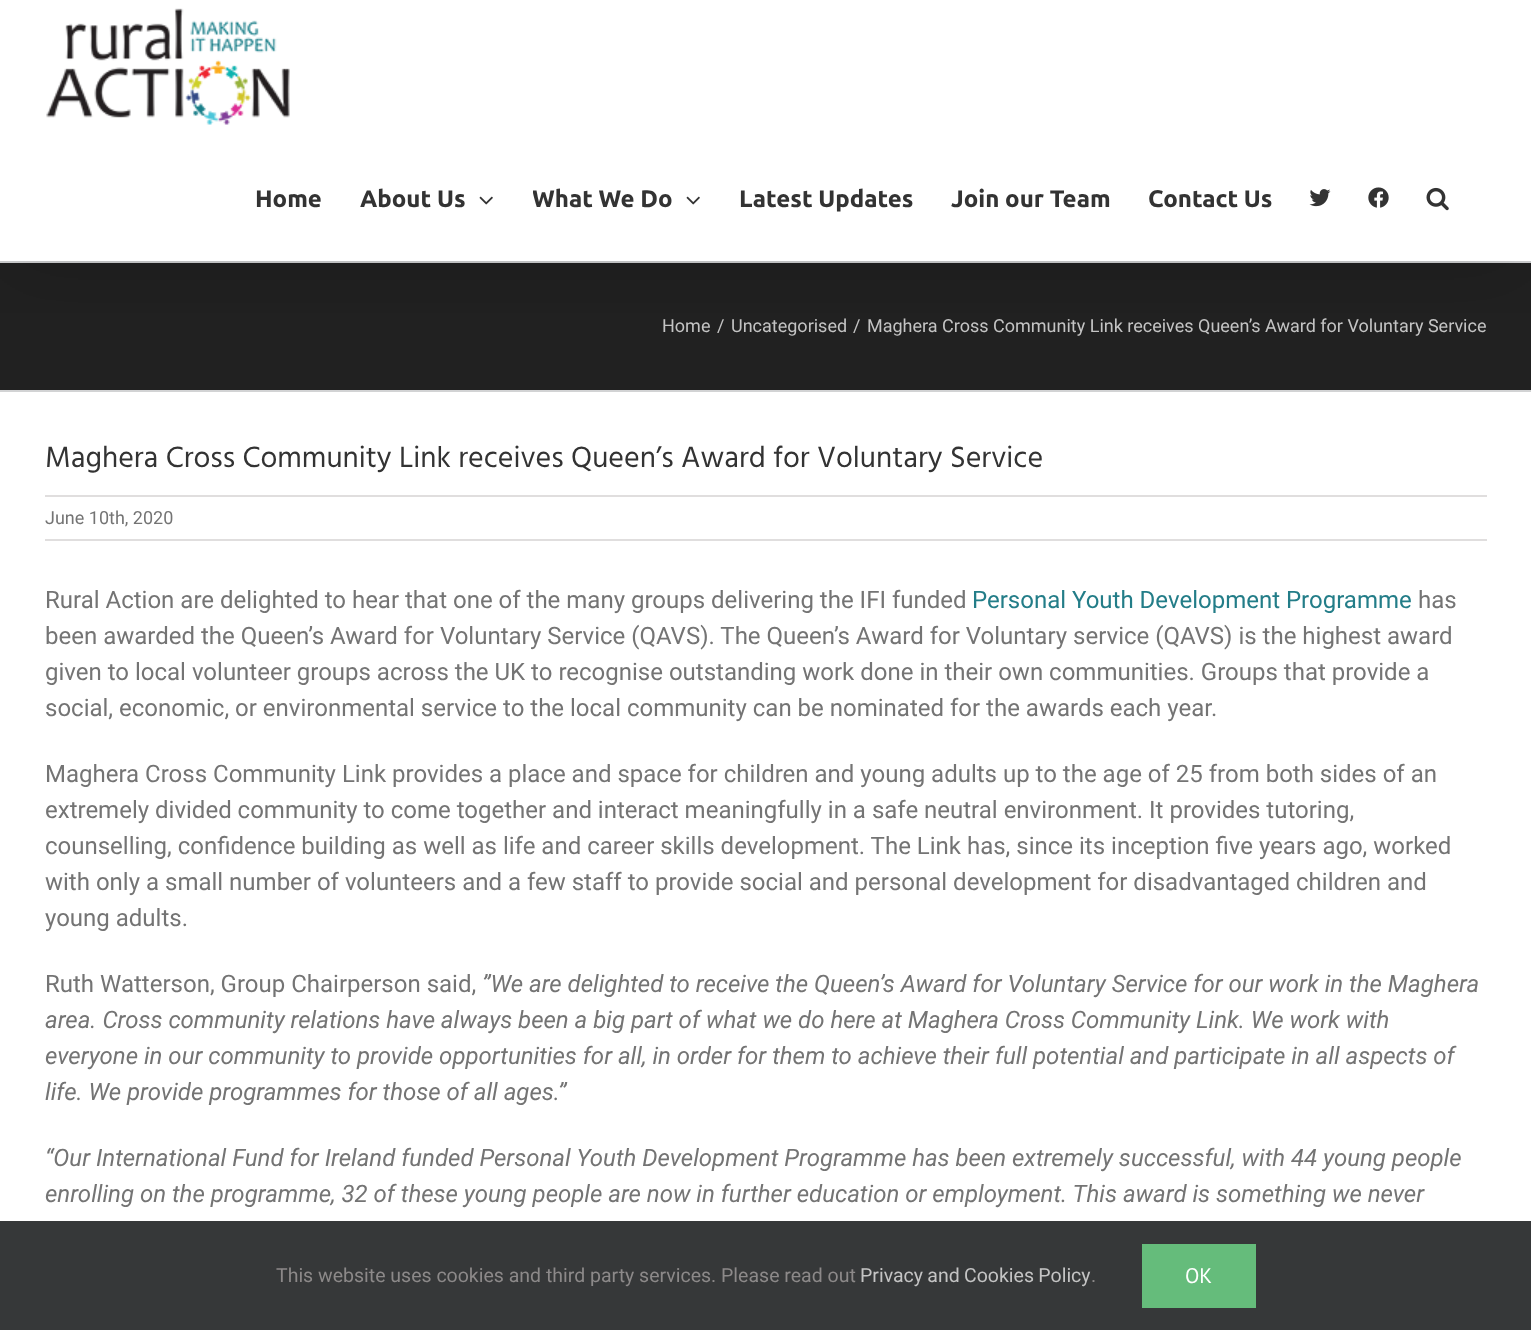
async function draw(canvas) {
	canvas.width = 1531;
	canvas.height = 1330;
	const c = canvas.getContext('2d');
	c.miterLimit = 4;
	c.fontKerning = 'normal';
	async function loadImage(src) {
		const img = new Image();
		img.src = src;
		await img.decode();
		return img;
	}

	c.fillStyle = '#fff';
	c.fillRect(0, 0, 1531, 1330);
	c.fillStyle = '#212121';
	c.fillRect(0, 263, 1531, 127);
	c.fillStyle = '#d2d3d4';
	c.fillRect(0, 261, 1531, 2);
	c.save();
	c.beginPath();
	c.rect(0, 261, 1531, 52);
	c.clip();
	c.fillStyle = '#00000024';
	c.filter = 'blur(37.5px)';
	c.beginPath();
	c.rect(3, 18, 1526, 255);
	c.fill();
	c.filter = 'none';
	c.restore();
	c.drawImage(await loadImage('img1.png'), 46, 8, 244, 117);
	c.font = 'bold 24px Ubuntu';
	c.fillStyle = '#333';
	c.fillText('Home', 255, 207);
	c.fillText('About Us', 360, 207);
	c.drawImage(await loadImage('img2.png'), 479, 196, 14, 9);
	c.save();
	c.beginPath();
	c.rect(533, 135, 207, 126);
	c.clip();
	c.fillText('What We Do', 532, 207);
	c.restore();
	c.drawImage(await loadImage('img2.png'), 686, 196, 14, 9);
	for (const [text, x, y] of [
		['Latest Updates', 739, 207],
		['Join our Team', 951, 207],
		['Contact Us', 1148, 207],
	]) {
		c.fillText(text, x, y);
	}
	c.drawImage(await loadImage('img3.png'), 1309, 189, 22, 18);
	c.drawImage(await loadImage('img4.png'), 1368, 187, 21, 21);
	c.drawImage(await loadImage('img5.png'), 1426, 187, 23, 24);
	c.fillStyle = '#d2d3d4';
	c.fillRect(0, 390, 1531, 2);
	c.font = '18px Roboto';
	c.fillStyle = '#c4c4c4';
	for (const [text, x, y] of [
		['Home', 662, 332],
		['/', 717, 332],
		['Uncategorised', 731, 332],
		['/', 853, 332],
		['Maghera Cross Community Link receives Queen’s Award for Voluntary Service', 867, 332],
	]) {
		c.fillText(text, x, y);
	}
	c.font = '30px Hind Guntur';
	c.fillStyle = '#333';
	c.fillText('Maghera Cross Community Link receives Queen’s Award for Voluntary Service', 45, 467);
	c.fillStyle = '#e0dede';
	c.fillRect(45, 495, 1442, 2);
	c.fillRect(45, 539, 1442, 2);
	c.font = '18px Roboto';
	c.fillStyle = '#747474';
	c.fillText('June 10th, 2020', 45, 524);
	c.font = '24px Roboto';
	c.fillText('Rural Action are delighted to hear that one of the many groups delivering the IFI funded', 45, 608);
	c.fillStyle = '#237d88';
	c.fillText('Personal Youth Development Programme', 972, 608);
	c.fillStyle = '#747474';
	for (const [text, x, y] of [
		['has', 1418, 608],
		['been awarded the Queen’s Award for Voluntary Service (QAVS). The Queen’s Award for Voluntary service (QAVS) is the highest award', 45, 644],
		['given to local volunteer groups across the UK to recognise outstanding work done in their own communities. Groups that provide a', 45, 680],
		['social, economic, or environmental service to the local community can be nominated for the awards each year.', 45, 716],
		['Maghera Cross Community Link provides a place and space for children and young adults up to the age of 25 from both sides of an', 45, 782],
		['extremely divided community to come together and interact meaningfully in a safe neutral environment. It provides tutoring,', 45, 818],
		['counselling, confidence building as well as life and career skills development. The Link has, since its inception five years ago, worked', 45, 854],
		['with only a small number of volunteers and a few staff to provide social and personal development for disadvantaged children and', 45, 890],
		['young adults.', 45, 926],
		['Ruth Watterson, Group Chairperson said,', 45, 992],
	]) {
		c.fillText(text, x, y);
	}
	c.font = 'italic 24px Roboto';
	for (const [text, x, y] of [
		['”We are delighted to receive the Queen’s Award for Voluntary Service for our work in the Maghera', 482, 992],
		['area. Cross community relations have always been a big part of what we do here at Maghera Cross Community Link. We work with', 45, 1028],
		['everyone in our community to provide opportunities for all, in order for them to achieve their full potential and participate in all aspects of', 45, 1064],
		['life. We provide programmes for those of all ages.”', 45, 1100],
		['“Our International Fund for Ireland funded Personal Youth Development Programme has been extremely successful, with 44 young people', 45, 1166],
		['enrolling on the programme, 32 of these young people are now in further education or employment. This award is something we never', 45, 1202],
	]) {
		c.fillText(text, x, y);
	}
	c.fillStyle = '#363839';
	c.fillRect(0, 1221, 1531, 109);
	c.font = '19.5px Roboto';
	c.fillStyle = '#8c8989';
	c.fillText('This website uses cookies and third party services. Please read out', 276, 1282);
	c.wordSpacing = '-0.5px';
	c.fillStyle = '#c4c4c4';
	c.fillText('Privacy and Cookies Policy', 860, 1282);
	c.wordSpacing = '0px';
	c.fillStyle = '#8c8989';
	c.fillText('.', 1091, 1282);
	c.fillStyle = '#65bc7b';
	c.fillRect(1142, 1244, 114, 64);
	c.font = '21px PT Sans';
	c.fillStyle = '#fff';
	c.fillText('OK', 1185, 1283);
}

draw(document.querySelector('canvas'));
